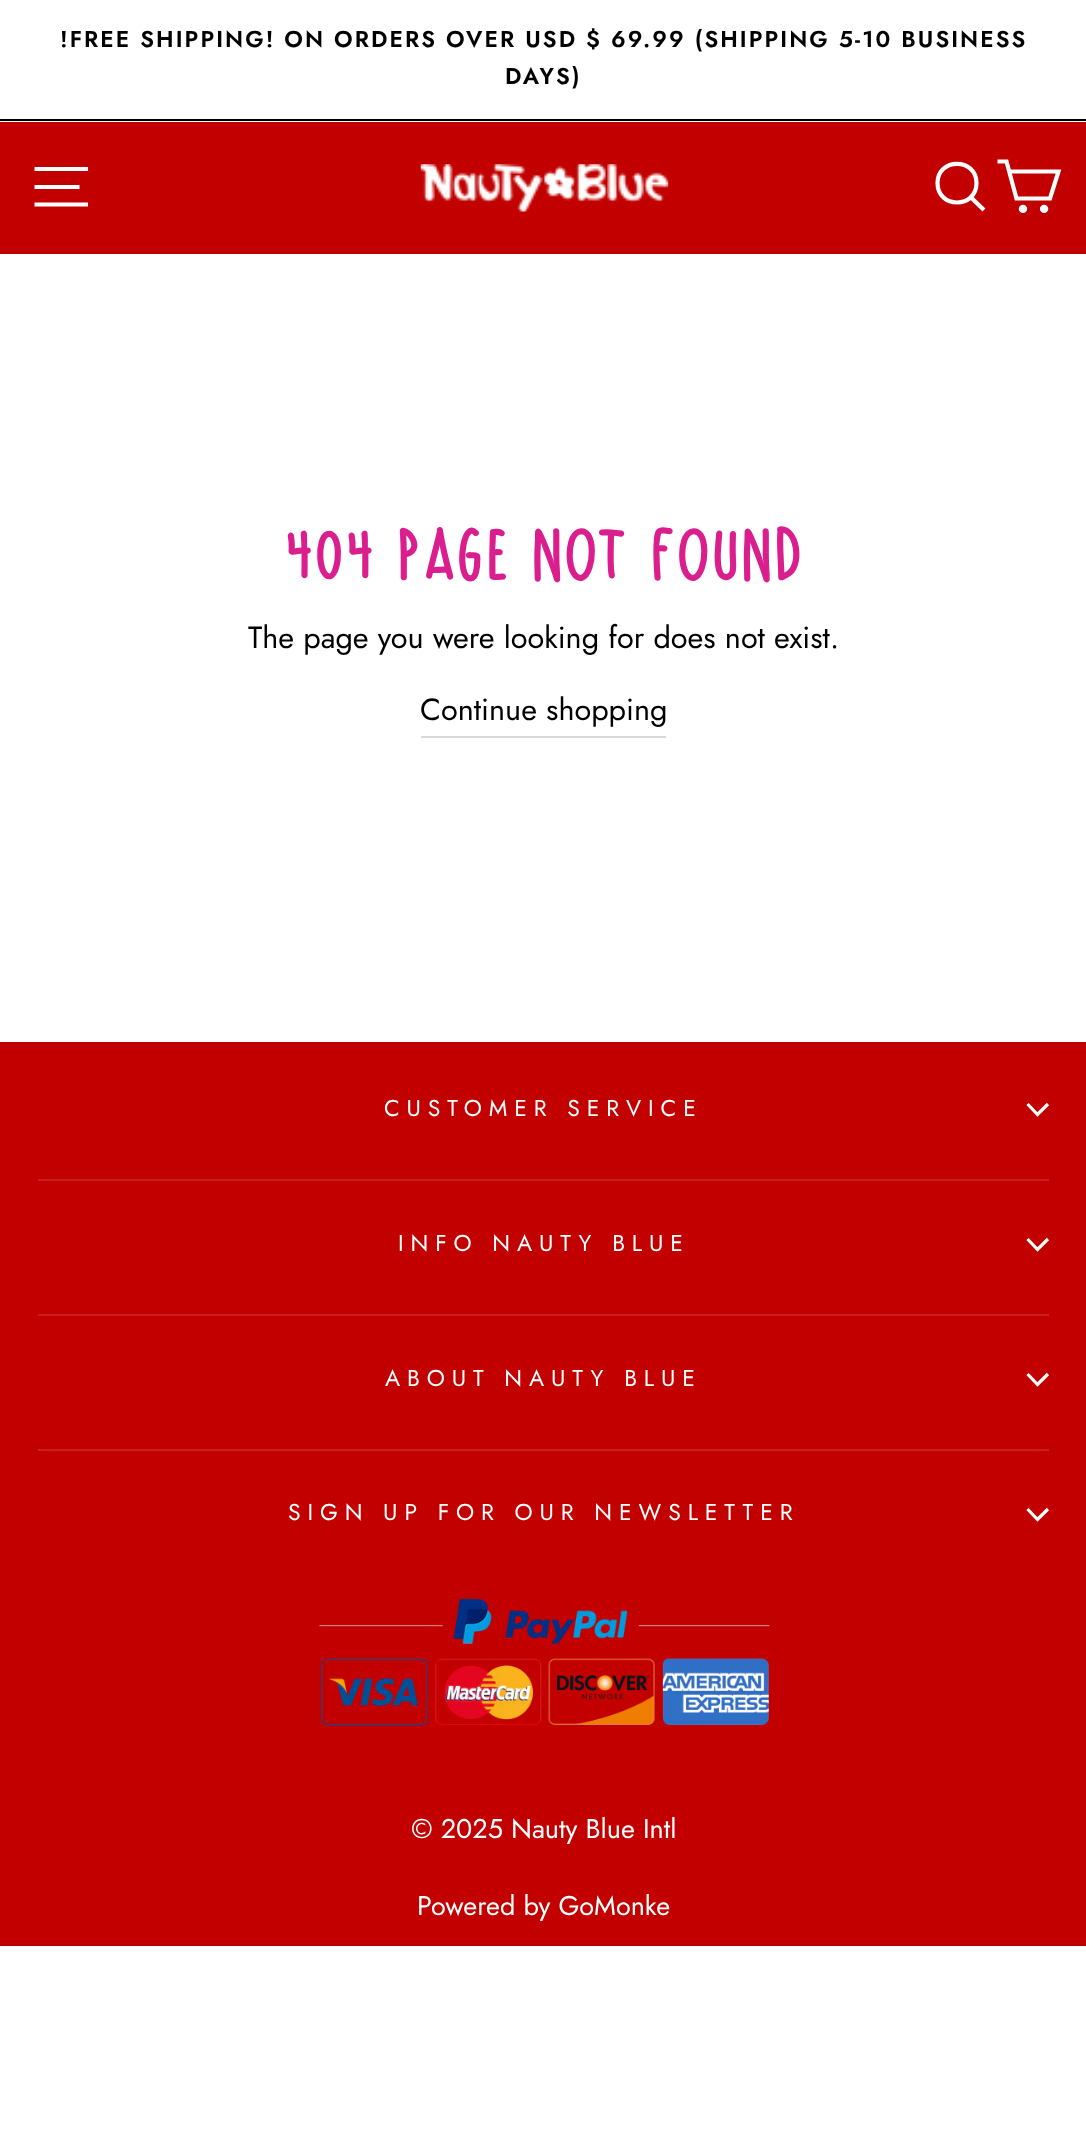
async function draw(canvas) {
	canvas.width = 1086;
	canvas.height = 2139;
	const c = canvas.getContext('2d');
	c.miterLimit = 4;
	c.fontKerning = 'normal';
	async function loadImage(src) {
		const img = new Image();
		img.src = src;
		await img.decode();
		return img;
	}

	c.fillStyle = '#fff';
	c.fillRect(0, 0, 1086, 2139);
	c.fillStyle = '#000';
	c.fillRect(0, 119, 1086, 2);
	c.letterSpacing = '2.07px';
	c.font = '600 22.95px Jost';
	c.fillText('!FREE SHIPPING! ON ORDERS OVER USD $ 69.99 (SHIPPING 5-10 BUSINESS', 60, 47);
	c.fillText('DAYS)', 505, 84);
	c.fillStyle = '#c20000';
	c.fillRect(0, 122, 1086, 132);
	c.beginPath();
	c.moveTo(34.5, 169);
	c.lineTo(88, 169);
	c.moveTo(34.5, 187);
	c.lineTo(79.5, 187);
	c.moveTo(34.5, 204.5);
	c.lineTo(88, 204.5);
	c.strokeStyle = '#fff';
	c.lineWidth = 4.2;
	c.stroke();
	c.drawImage(await loadImage('img1.png'), 420, 164, 249, 48);
	c.beginPath();
	c.moveTo(976.5, 183);
	c.bezierCurveTo(976.5, 209, 937.5, 209, 937.5, 183);
	c.bezierCurveTo(937.5, 157.5, 976.5, 157.5, 976.5, 183);
	c.closePath();
	c.moveTo(984, 210);
	c.lineTo(971, 197.5);
	c.stroke();
	c.beginPath();
	c.moveTo(1009.5, 171.5);
	c.lineTo(1058.5, 171.5);
	c.lineTo(1050, 198.5);
	c.lineTo(1016.5, 198.5);
	c.lineTo(1006.5, 161.5);
	c.lineTo(997.5, 161.5);
	c.stroke();
	c.beginPath();
	c.arc(1023, 208.9, 2.1, 0, 2 * Math.PI);
	c.stroke();
	c.beginPath();
	c.arc(1044.1, 208.9, 2.1, 0, 2 * Math.PI);
	c.stroke();
	c.letterSpacing = '0px';
	c.font = 'bold 68.75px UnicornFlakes';
	c.fillStyle = '#da1e8e';
	c.fillText('404 PAGE NOT FOUND', 283, 580);
	c.font = '30.6px Jost';
	c.fillStyle = '#000';
	c.fillText('The page you were looking for does not exist.', 248, 648);
	c.fillStyle = '#d9d9d9';
	c.fillRect(421, 736, 245, 2);
	c.fillStyle = '#000';
	c.fillText('Continue shopping', 420, 720);
	c.fillStyle = '#c20000';
	c.fillRect(0, 1042, 1086, 904);
	c.letterSpacing = '6.9px';
	c.font = '22.95px Jost';
	c.fillStyle = '#fff';
	c.fillText('CUSTOMER SERVICE', 384, 1116);
	c.beginPath();
	c.moveTo(1027.5, 1104);
	c.lineTo(1037.5, 1114.5);
	c.lineTo(1048, 1104);
	c.lineWidth = 3.2;
	c.stroke();
	c.fillStyle = '#c91f1f';
	c.fillRect(38, 1179, 1011, 2);
	c.fillStyle = '#fff';
	c.fillText('INFO NAUTY BLUE', 398, 1251);
	c.beginPath();
	c.moveTo(1027.5, 1239);
	c.lineTo(1037.5, 1249.5);
	c.lineTo(1048, 1239);
	c.stroke();
	c.fillStyle = '#c91f1f';
	c.fillRect(38, 1314, 1011, 2);
	c.fillStyle = '#fff';
	c.fillText('ABOUT NAUTY BLUE', 385, 1386);
	c.beginPath();
	c.moveTo(1027.5, 1374);
	c.lineTo(1037.5, 1384.5);
	c.lineTo(1048, 1374);
	c.stroke();
	c.fillStyle = '#c91f1f';
	c.fillRect(38, 1449, 1011, 2);
	c.fillStyle = '#fff';
	c.fillText('SIGN UP FOR OUR NEWSLETTER', 288, 1520);
	c.beginPath();
	c.moveTo(1027.5, 1509);
	c.lineTo(1037.5, 1519.5);
	c.lineTo(1048, 1509);
	c.stroke();
	c.drawImage(await loadImage('img2.png'), 319, 1598, 451, 128);
	c.letterSpacing = '0px';
	c.font = '27px Jost';
	c.fillText('© 2025 Nauty Blue Intl', 411, 1838);
	c.fillText('Powered by GoMonke', 417, 1915);
}

draw(document.querySelector('canvas'));
